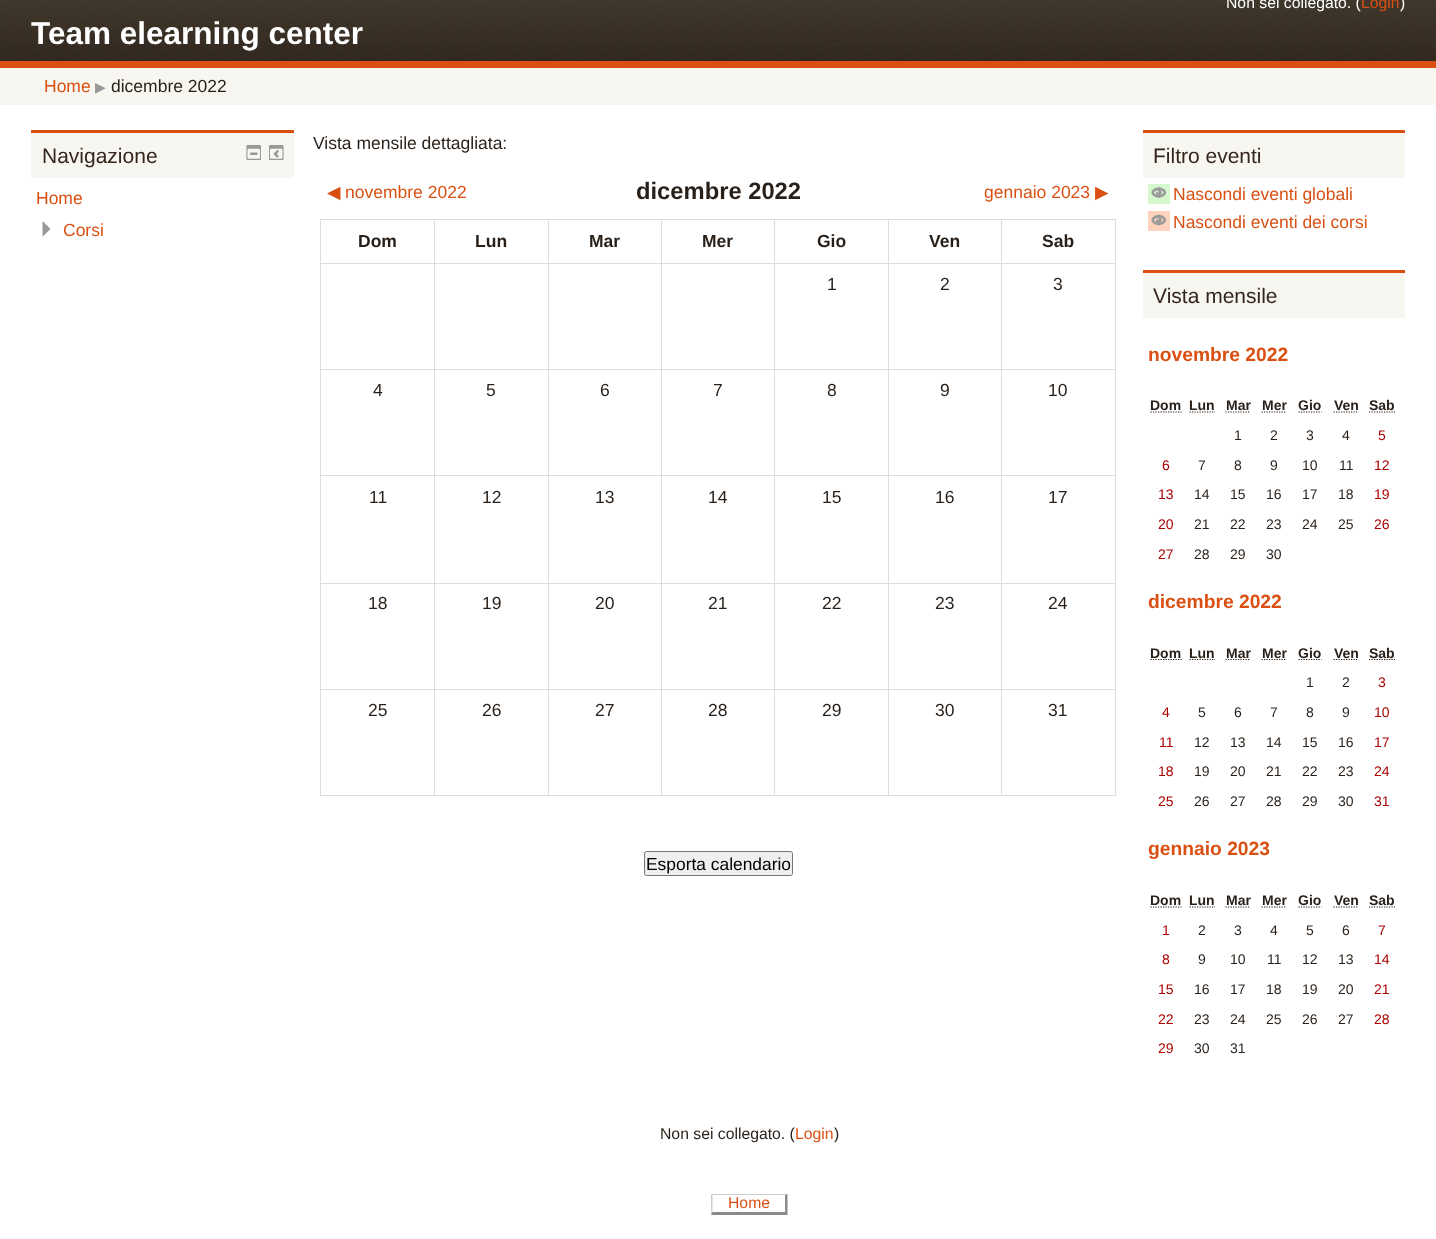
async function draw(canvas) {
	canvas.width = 1436;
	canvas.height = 1239;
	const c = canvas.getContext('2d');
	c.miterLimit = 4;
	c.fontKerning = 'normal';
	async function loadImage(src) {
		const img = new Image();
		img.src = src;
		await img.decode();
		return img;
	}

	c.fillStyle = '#fff';
	c.fillRect(0, 0, 1436, 1239);
	c.drawImage(await loadImage('img1.png'), 0, 0, 1436, 61);
	c.fillStyle = '#da5013';
	c.fillRect(0, 61, 1436, 7);
	c.font = '15.75px Liberation Sans';
	c.fillStyle = '#fff';
	c.fillText('Non sei collegato. (', 1226, 8);
	c.fillStyle = '#da5013';
	c.fillText('Login', 1361, 8);
	c.fillStyle = '#fff';
	c.fillText(')', 1400, 8);
	c.font = 'bold 31.5px Liberation Sans';
	c.fillText('Team elearning center', 31, 44);
	c.fillStyle = '#f7f6f1';
	c.fillRect(0, 68, 1436, 37);
	c.font = '17.5px Liberation Sans';
	c.fillStyle = '#da5013';
	c.fillText('Home', 44, 92);
	c.font = '14px DejaVu Sans';
	c.fillStyle = '#999';
	c.fillText('▶', 95, 92);
	c.font = '17.5px Liberation Sans';
	c.fillStyle = '#281f18';
	c.fillText('dicembre 2022', 111, 92);
	c.fillStyle = '#f7f6f1';
	c.fillRect(31, 133, 263, 45);
	c.fillStyle = '#da5013';
	c.fillRect(31, 130, 263, 3);
	c.font = '21px Liberation Sans';
	c.fillStyle = '#35251b';
	c.fillText('Navigazione', 42, 163);
	c.drawImage(await loadImage('img2.png'), 246, 145, 15, 15);
	c.drawImage(await loadImage('img3.png'), 269, 145, 15, 15);
	c.font = '17.5px Liberation Sans';
	c.fillStyle = '#da5013';
	c.fillText('Home', 36, 204);
	c.drawImage(await loadImage('img4.png'), 42, 221, 8, 16);
	c.fillText('Corsi', 63, 236);
	c.fillStyle = '#281f18';
	c.fillText('Vista mensile dettagliata:', 313, 149);
	c.font = '17.5px DejaVu Sans';
	c.fillStyle = '#da5013';
	c.fillText('◀', 327, 198);
	c.font = '17.5px Liberation Sans';
	c.fillText('novembre 2022', 345, 198);
	c.font = 'bold 23.75px Liberation Sans';
	c.fillStyle = '#281f18';
	c.fillText('dicembre 2022', 636, 199);
	c.font = '17.5px Liberation Sans';
	c.fillStyle = '#da5013';
	c.fillText('gennaio 2023', 984, 198);
	c.font = '17.5px DejaVu Sans';
	c.fillText('▶', 1095, 198);
	for (const [x, y, w, h, color] of [
		[1001, 219, 115, 1, '#ddd'],
		[1001, 263, 115, 1, '#ddd'],
		[1001, 369, 115, 1, '#ddd'],
		[1001, 475, 115, 1, '#ddd'],
		[1001, 583, 115, 1, '#ddd'],
		[1001, 689, 115, 1, '#ddd'],
		[1115, 689, 1, 107, '#ddd'],
		[1001, 795, 115, 1, '#ddd'],
		[1001, 689, 1, 107, '#ddd'],
		[888, 689, 115, 1, '#ddd'],
		[1001, 583, 1, 107, '#ddd'],
		[888, 583, 115, 1, '#ddd'],
		[1001, 475, 1, 109, '#ddd'],
		[888, 475, 115, 1, '#ddd'],
		[1001, 369, 1, 107, '#ddd'],
		[888, 369, 115, 1, '#ddd'],
		[1001, 263, 1, 107, '#ddd'],
		[888, 263, 115, 1, '#ddd'],
		[1001, 219, 1, 45, '#ddd'],
		[888, 219, 115, 1, '#ddd'],
		[888, 795, 115, 1, '#ddd'],
		[888, 689, 1, 107, '#ddd'],
		[774, 689, 115, 1, '#ddd'],
		[888, 583, 1, 107, '#ddd'],
		[774, 583, 115, 1, '#ddd'],
		[888, 475, 1, 109, '#ddd'],
		[774, 475, 115, 1, '#ddd'],
		[888, 369, 1, 107, '#ddd'],
		[774, 369, 115, 1, '#ddd'],
		[888, 263, 1, 107, '#ddd'],
		[774, 263, 115, 1, '#ddd'],
		[888, 219, 1, 45, '#ddd'],
		[774, 219, 115, 1, '#ddd'],
		[774, 795, 115, 1, '#ddd'],
		[774, 689, 1, 107, '#ddd'],
		[661, 689, 114, 1, '#ddd'],
		[774, 583, 1, 107, '#ddd'],
		[661, 583, 114, 1, '#ddd'],
		[774, 475, 1, 109, '#ddd'],
		[661, 475, 114, 1, '#ddd'],
		[774, 369, 1, 107, '#ddd'],
		[661, 369, 114, 1, '#ddd'],
		[774, 263, 1, 107, '#ddd'],
		[661, 263, 114, 1, '#ddd'],
		[774, 219, 1, 45, '#ddd'],
		[661, 219, 114, 1, '#ddd'],
		[661, 795, 114, 1, '#ddd'],
		[661, 689, 1, 107, '#ddd'],
		[548, 689, 115, 1, '#ddd'],
		[661, 583, 1, 107, '#ddd'],
		[548, 583, 115, 1, '#ddd'],
		[661, 475, 1, 109, '#ddd'],
		[548, 475, 115, 1, '#ddd'],
		[661, 369, 1, 107, '#ddd'],
		[548, 369, 115, 1, '#ddd'],
		[661, 263, 1, 107, '#ddd'],
		[548, 263, 115, 1, '#ddd'],
		[661, 219, 1, 45, '#ddd'],
		[548, 219, 115, 1, '#ddd'],
		[548, 795, 115, 1, '#ddd'],
		[548, 689, 1, 107, '#ddd'],
		[434, 689, 115, 1, '#ddd'],
		[548, 583, 1, 107, '#ddd'],
		[434, 583, 115, 1, '#ddd'],
		[548, 475, 1, 109, '#ddd'],
		[434, 475, 115, 1, '#ddd'],
		[548, 369, 1, 107, '#ddd'],
		[434, 369, 115, 1, '#ddd'],
		[548, 263, 1, 107, '#ddd'],
		[434, 263, 115, 1, '#ddd'],
		[548, 219, 1, 45, '#ddd'],
		[434, 219, 115, 1, '#ddd'],
		[434, 795, 115, 1, '#ddd'],
		[434, 689, 1, 107, '#ddd'],
		[320, 689, 115, 1, '#ddd'],
		[434, 583, 1, 107, '#ddd'],
		[320, 583, 115, 1, '#ddd'],
		[434, 475, 1, 109, '#ddd'],
		[320, 475, 115, 1, '#ddd'],
		[434, 369, 1, 107, '#ddd'],
		[320, 369, 115, 1, '#ddd'],
		[434, 263, 1, 107, '#ddd'],
		[320, 263, 115, 1, '#ddd'],
		[434, 219, 1, 45, '#ddd'],
		[320, 219, 115, 1, '#ddd'],
		[320, 795, 115, 1, '#ddd'],
		[320, 689, 1, 107, '#ddd'],
		[320, 583, 1, 107, '#ddd'],
		[320, 475, 1, 109, '#ddd'],
		[320, 369, 1, 107, '#ddd'],
		[320, 263, 1, 107, '#ddd'],
		[320, 219, 1, 45, '#ddd'],
	]) {
		c.fillStyle = color;
		c.fillRect(x, y, w, h);
	}
	c.font = 'bold 17.5px Liberation Sans';
	c.fillStyle = '#281f18';
	for (const [text, x, y] of [
		['Dom', 358, 247],
		['Lun', 475, 247],
		['Mar', 589, 247],
		['Mer', 702, 247],
		['Gio', 817, 247],
		['Ven', 929, 247],
	]) {
		c.fillText(text, x, y);
	}
	for (const [x, y, w, h, color] of [
		[1115, 583, 1, 107, '#ddd'],
		[1115, 475, 1, 109, '#ddd'],
		[1115, 369, 1, 107, '#ddd'],
		[1115, 263, 1, 107, '#ddd'],
		[1115, 219, 1, 45, '#ddd'],
	]) {
		c.fillStyle = color;
		c.fillRect(x, y, w, h);
	}
	c.fillStyle = '#281f18';
	c.fillText('Sab', 1042, 247);
	c.font = '17.5px Liberation Sans';
	for (const [text, x, y] of [
		['1', 827, 290],
		['2', 940, 290],
		['3', 1053, 290],
		['4', 373, 396],
		['5', 486, 396],
		['6', 600, 396],
		['7', 713, 396],
		['8', 827, 396],
		['9', 940, 396],
		['10', 1048, 396],
		['11', 369, 503],
		['12', 482, 503],
		['13', 595, 503],
		['14', 708, 503],
		['15', 822, 503],
		['16', 935, 503],
		['17', 1048, 503],
		['18', 368, 609],
		['19', 482, 609],
		['20', 595, 609],
		['21', 708, 609],
		['22', 822, 609],
		['23', 935, 609],
		['24', 1048, 609],
		['25', 368, 716],
		['26', 482, 716],
		['27', 595, 716],
		['28', 708, 716],
		['29', 822, 716],
		['30', 935, 716],
		['31', 1048, 716],
	]) {
		c.fillText(text, x, y);
	}
	c.fillStyle = '#efefef';
	c.beginPath();
	c.roundRect(644.5, 851.5, 148, 24, 2);
	c.fill();
	c.strokeStyle = '#767676';
	c.stroke();
	c.font = '17.4px Liberation Sans';
	c.fillStyle = '#000';
	c.fillText('Esporta calendario', 646, 870);
	c.fillStyle = '#f7f6f1';
	c.fillRect(1143, 133, 262, 45);
	c.fillStyle = '#da5013';
	c.fillRect(1143, 130, 262, 3);
	c.font = '21px Liberation Sans';
	c.fillStyle = '#35251b';
	c.fillText('Filtro eventi', 1153, 163);
	c.fillStyle = '#d6f8cd';
	c.fillRect(1148, 184, 22, 20);
	c.drawImage(await loadImage('img5.png'), 1151, 187, 15, 11);
	c.font = '17.5px Liberation Sans';
	c.fillStyle = '#da5013';
	c.fillText('Nascondi eventi globali', 1173, 200);
	c.fillStyle = '#ffd3bd';
	c.fillRect(1148, 211, 22, 20);
	c.drawImage(await loadImage('img6.png'), 1151, 214, 15, 12);
	c.fillStyle = '#da5013';
	c.fillText('Nascondi eventi dei corsi', 1173, 228);
	c.fillStyle = '#f7f6f1';
	c.fillRect(1143, 273, 262, 45);
	c.fillStyle = '#da5013';
	c.fillRect(1143, 270, 262, 3);
	c.font = '21px Liberation Sans';
	c.fillStyle = '#35251b';
	c.fillText('Vista mensile', 1153, 303);
	c.font = 'bold 19.25px Liberation Sans';
	c.fillStyle = '#da5013';
	c.fillText('novembre 2022', 1148, 361);
	c.font = 'bold 14px Liberation Sans';
	c.fillStyle = '#281f18';
	c.fillText('Dom', 1150, 410);
	c.beginPath();
	c.moveTo(1150.5, 412);
	c.lineTo(1181.5, 412);
	c.strokeStyle = '#281f18';
	c.lineWidth = 1.2;
	c.setLineDash([1.25, 1.25]);
	c.stroke();
	c.fillText('Lun', 1189, 410);
	c.beginPath();
	c.moveTo(1189.5, 412);
	c.lineTo(1215, 412);
	c.stroke();
	c.fillText('Mar', 1226, 410);
	c.beginPath();
	c.moveTo(1225.5, 412);
	c.lineTo(1250.5, 412);
	c.stroke();
	c.fillText('Mer', 1262, 410);
	c.beginPath();
	c.moveTo(1261.5, 412);
	c.lineTo(1286.5, 412);
	c.stroke();
	c.fillText('Gio', 1298, 410);
	c.beginPath();
	c.moveTo(1298.5, 412);
	c.lineTo(1321.5, 412);
	c.stroke();
	c.fillText('Ven', 1334, 410);
	c.beginPath();
	c.moveTo(1333.5, 412);
	c.lineTo(1358.5, 412);
	c.stroke();
	c.fillText('Sab', 1369, 410);
	c.beginPath();
	c.moveTo(1369, 412);
	c.lineTo(1395, 412);
	c.stroke();
	c.font = '14px Liberation Sans';
	for (const [text, x, y] of [
		['1', 1234, 440],
		['2', 1270, 440],
		['3', 1306, 440],
		['4', 1342, 440],
	]) {
		c.fillText(text, x, y);
	}
	c.fillStyle = '#a00';
	c.fillText('5', 1378, 440);
	c.fillText('6', 1162, 470);
	c.fillStyle = '#281f18';
	for (const [text, x, y] of [
		['7', 1198, 470],
		['8', 1234, 470],
		['9', 1270, 470],
		['10', 1302, 470],
		['11', 1339, 470],
	]) {
		c.fillText(text, x, y);
	}
	c.fillStyle = '#a00';
	c.fillText('12', 1374, 470);
	c.fillText('13', 1158, 499);
	c.fillStyle = '#281f18';
	for (const [text, x, y] of [
		['14', 1194, 499],
		['15', 1230, 499],
		['16', 1266, 499],
		['17', 1302, 499],
		['18', 1338, 499],
	]) {
		c.fillText(text, x, y);
	}
	c.fillStyle = '#a00';
	c.fillText('19', 1374, 499);
	c.fillText('20', 1158, 529);
	c.fillStyle = '#281f18';
	for (const [text, x, y] of [
		['21', 1194, 529],
		['22', 1230, 529],
		['23', 1266, 529],
		['24', 1302, 529],
		['25', 1338, 529],
	]) {
		c.fillText(text, x, y);
	}
	c.fillStyle = '#a00';
	c.fillText('26', 1374, 529);
	c.fillText('27', 1158, 559);
	c.fillStyle = '#281f18';
	for (const [text, x, y] of [
		['28', 1194, 559],
		['29', 1230, 559],
		['30', 1266, 559],
	]) {
		c.fillText(text, x, y);
	}
	c.font = 'bold 19.25px Liberation Sans';
	c.fillStyle = '#da5013';
	c.fillText('dicembre 2022', 1148, 608);
	c.beginPath();
	c.moveTo(1150.5, 659.5);
	c.lineTo(1181.5, 659.5);
	c.stroke();
	c.font = 'bold 14px Liberation Sans';
	c.fillStyle = '#281f18';
	c.fillText('Dom', 1150, 658);
	c.beginPath();
	c.moveTo(1189.5, 659.5);
	c.lineTo(1215, 659.5);
	c.stroke();
	c.fillText('Lun', 1189, 658);
	c.beginPath();
	c.moveTo(1225.5, 659.5);
	c.lineTo(1250.5, 659.5);
	c.stroke();
	c.fillText('Mar', 1226, 658);
	c.beginPath();
	c.moveTo(1261.5, 659.5);
	c.lineTo(1286.5, 659.5);
	c.stroke();
	c.fillText('Mer', 1262, 658);
	c.beginPath();
	c.moveTo(1298.5, 659.5);
	c.lineTo(1321.5, 659.5);
	c.stroke();
	c.fillText('Gio', 1298, 658);
	c.beginPath();
	c.moveTo(1333.5, 659.5);
	c.lineTo(1358.5, 659.5);
	c.stroke();
	c.fillText('Ven', 1334, 658);
	c.beginPath();
	c.moveTo(1369, 659.5);
	c.lineTo(1395, 659.5);
	c.stroke();
	c.fillText('Sab', 1369, 658);
	c.font = '14px Liberation Sans';
	c.fillText('1', 1306, 687);
	c.fillText('2', 1342, 687);
	c.fillStyle = '#a00';
	c.fillText('3', 1378, 687);
	c.fillText('4', 1162, 717);
	c.fillStyle = '#281f18';
	for (const [text, x, y] of [
		['5', 1198, 717],
		['6', 1234, 717],
		['7', 1270, 717],
		['8', 1306, 717],
		['9', 1342, 717],
	]) {
		c.fillText(text, x, y);
	}
	c.fillStyle = '#a00';
	c.fillText('10', 1374, 717);
	c.fillText('11', 1159, 747);
	c.fillStyle = '#281f18';
	for (const [text, x, y] of [
		['12', 1194, 747],
		['13', 1230, 747],
		['14', 1266, 747],
		['15', 1302, 747],
		['16', 1338, 747],
	]) {
		c.fillText(text, x, y);
	}
	c.fillStyle = '#a00';
	c.fillText('17', 1374, 747);
	c.fillText('18', 1158, 776);
	c.fillStyle = '#281f18';
	for (const [text, x, y] of [
		['19', 1194, 776],
		['20', 1230, 776],
		['21', 1266, 776],
		['22', 1302, 776],
		['23', 1338, 776],
	]) {
		c.fillText(text, x, y);
	}
	c.fillStyle = '#a00';
	c.fillText('24', 1374, 776);
	c.fillText('25', 1158, 806);
	c.fillStyle = '#281f18';
	for (const [text, x, y] of [
		['26', 1194, 806],
		['27', 1230, 806],
		['28', 1266, 806],
		['29', 1302, 806],
		['30', 1338, 806],
	]) {
		c.fillText(text, x, y);
	}
	c.fillStyle = '#a00';
	c.fillText('31', 1374, 806);
	c.font = 'bold 19.25px Liberation Sans';
	c.fillStyle = '#da5013';
	c.fillText('gennaio 2023', 1148, 855);
	c.font = 'bold 14px Liberation Sans';
	c.fillStyle = '#281f18';
	c.fillText('Dom', 1150, 905);
	c.beginPath();
	c.moveTo(1150.5, 907);
	c.lineTo(1181.5, 907);
	c.stroke();
	c.fillText('Lun', 1189, 905);
	c.beginPath();
	c.moveTo(1189.5, 907);
	c.lineTo(1215, 907);
	c.stroke();
	c.fillText('Mar', 1226, 905);
	c.beginPath();
	c.moveTo(1225.5, 907);
	c.lineTo(1250.5, 907);
	c.stroke();
	c.fillText('Mer', 1262, 905);
	c.beginPath();
	c.moveTo(1261.5, 907);
	c.lineTo(1286.5, 907);
	c.stroke();
	c.fillText('Gio', 1298, 905);
	c.beginPath();
	c.moveTo(1298.5, 907);
	c.lineTo(1321.5, 907);
	c.stroke();
	c.fillText('Ven', 1334, 905);
	c.beginPath();
	c.moveTo(1333.5, 907);
	c.lineTo(1358.5, 907);
	c.stroke();
	c.fillText('Sab', 1369, 905);
	c.beginPath();
	c.moveTo(1369, 907);
	c.lineTo(1395, 907);
	c.stroke();
	c.font = '14px Liberation Sans';
	c.fillStyle = '#a00';
	c.fillText('1', 1162, 935);
	c.fillStyle = '#281f18';
	for (const [text, x, y] of [
		['2', 1198, 935],
		['3', 1234, 935],
		['4', 1270, 935],
		['5', 1306, 935],
		['6', 1342, 935],
	]) {
		c.fillText(text, x, y);
	}
	c.fillStyle = '#a00';
	c.fillText('7', 1378, 935);
	c.fillText('8', 1162, 964);
	c.fillStyle = '#281f18';
	for (const [text, x, y] of [
		['9', 1198, 964],
		['10', 1230, 964],
		['11', 1267, 964],
		['12', 1302, 964],
		['13', 1338, 964],
	]) {
		c.fillText(text, x, y);
	}
	c.fillStyle = '#a00';
	c.fillText('14', 1374, 964);
	c.fillText('15', 1158, 994);
	c.fillStyle = '#281f18';
	for (const [text, x, y] of [
		['16', 1194, 994],
		['17', 1230, 994],
		['18', 1266, 994],
		['19', 1302, 994],
		['20', 1338, 994],
	]) {
		c.fillText(text, x, y);
	}
	c.fillStyle = '#a00';
	c.fillText('21', 1374, 994);
	c.fillText('22', 1158, 1024);
	c.fillStyle = '#281f18';
	for (const [text, x, y] of [
		['23', 1194, 1024],
		['24', 1230, 1024],
		['25', 1266, 1024],
		['26', 1302, 1024],
		['27', 1338, 1024],
	]) {
		c.fillText(text, x, y);
	}
	c.fillStyle = '#a00';
	c.fillText('28', 1374, 1024);
	c.fillText('29', 1158, 1053);
	c.fillStyle = '#281f18';
	c.fillText('30', 1194, 1053);
	c.fillText('31', 1230, 1053);
	c.font = '15.75px Liberation Sans';
	c.fillText('Non sei collegato. (', 660, 1139);
	c.fillStyle = '#da5013';
	c.fillText('Login', 795, 1139);
	c.fillStyle = '#281f18';
	c.fillText(')', 834, 1139);
	c.fillStyle = '#da5013';
	c.fillText('Home', 728, 1208);
	c.fillStyle = '#cecece';
	c.beginPath();
	c.moveTo(711, 1194);
	c.lineTo(788, 1194);
	c.lineTo(785, 1195);
	c.lineTo(712, 1195);
	c.closePath();
	c.fill();
	c.fillStyle = '#8a8a8a';
	c.beginPath();
	c.moveTo(787.5, 1194);
	c.lineTo(787.5, 1215);
	c.lineTo(785, 1212.5);
	c.lineTo(785, 1195);
	c.closePath();
	c.fill();
	c.beginPath();
	c.moveTo(788, 1215);
	c.lineTo(711, 1215);
	c.lineTo(712, 1212);
	c.lineTo(785, 1212);
	c.closePath();
	c.fill();
	c.fillStyle = '#cecece';
	c.beginPath();
	c.moveTo(711, 1215);
	c.lineTo(711, 1194);
	c.lineTo(712.5, 1195);
	c.lineTo(712.5, 1212.5);
	c.closePath();
	c.fill();
}

draw(document.querySelector('canvas'));
